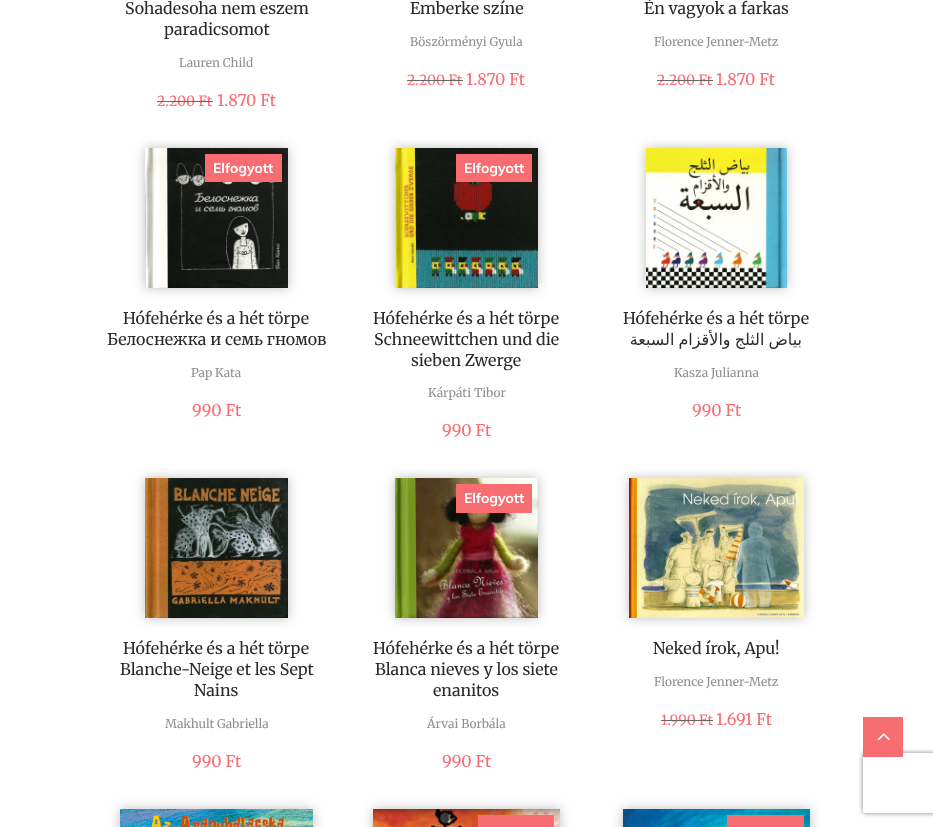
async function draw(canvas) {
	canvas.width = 933;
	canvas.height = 827;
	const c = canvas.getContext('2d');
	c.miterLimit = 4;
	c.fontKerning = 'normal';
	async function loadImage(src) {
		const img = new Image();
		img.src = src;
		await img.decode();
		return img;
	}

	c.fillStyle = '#fff';
	c.fillRect(0, 0, 933, 827);
	c.font = '16px Merriweather';
	c.fillStyle = '#2b2b2b';
	c.fillText('Sohadesoha nem eszem', 125, 14);
	c.fillText('paradicsomot', 164, 35);
	c.font = '12px Merriweather';
	c.fillStyle = '#909090';
	c.fillText('Lauren Child', 179, 67);
	c.font = '14px Merriweather';
	c.fillStyle = '#f86d72';
	c.fillText('2.200 Ft', 157, 106);
	c.fillStyle = '#666';
	c.fillRect(157, 101, 56, 1);
	c.font = '16px Merriweather';
	c.fillStyle = '#f86d72';
	c.fillText('1.870 Ft', 217, 106);
	c.fillStyle = '#2b2b2b';
	c.fillText('Emberke színe', 410, 14);
	c.font = '12px Merriweather';
	c.fillStyle = '#909090';
	c.fillText('Böszörményi Gyula', 410, 46);
	c.font = '14px Merriweather';
	c.fillStyle = '#f86d72';
	c.fillText('2.200 Ft', 407, 85);
	c.fillStyle = '#666';
	c.fillRect(407, 80, 56, 1);
	c.font = '16px Merriweather';
	c.fillStyle = '#f86d72';
	c.fillText('1.870 Ft', 466, 85);
	c.fillStyle = '#2b2b2b';
	c.fillText('Én vagyok a farkas', 644, 14);
	c.font = '12px Merriweather';
	c.fillStyle = '#909090';
	c.fillText('Florence Jenner-Metz', 654, 46);
	c.font = '14px Merriweather';
	c.fillStyle = '#f86d72';
	c.fillText('2.200 Ft', 657, 85);
	c.fillStyle = '#666';
	c.fillRect(657, 80, 56, 1);
	c.font = '16px Merriweather';
	c.fillStyle = '#f86d72';
	c.fillText('1.870 Ft', 716, 85);
	c.fillStyle = '#2b2b2b4d';
	c.filter = 'blur(6px)';
	c.beginPath();
	c.rect(145, 148, 143, 140);
	c.fill();
	c.filter = 'none';
	c.drawImage(await loadImage('img1.png'), 145, 148, 143, 140);
	c.fillStyle = '#f86d72';
	c.fillRect(205, 154, 77, 28);
	c.font = 'bold 14px Muli';
	c.fillStyle = '#fff';
	c.fillText('Elfogyott', 213, 173);
	c.font = '16px Merriweather';
	c.fillStyle = '#2b2b2b';
	c.fillText('Hófehérke és a hét törpe', 123, 324);
	c.fillText('Белоснежка и семь гномов', 107, 345);
	c.font = '12px Merriweather';
	c.fillStyle = '#909090';
	c.fillText('Pap Kata', 191, 377);
	c.font = '16px Merriweather';
	c.fillStyle = '#f86d72';
	c.fillText('990 Ft', 192, 416);
	c.fillStyle = '#2b2b2b4d';
	c.filter = 'blur(6px)';
	c.beginPath();
	c.rect(395, 148, 143, 140);
	c.fill();
	c.filter = 'none';
	c.drawImage(await loadImage('img2.png'), 395, 148, 143, 140);
	c.fillStyle = '#f86d72';
	c.fillRect(456, 154, 76, 28);
	c.font = 'bold 14px Muli';
	c.fillStyle = '#fff';
	c.fillText('Elfogyott', 464, 173);
	c.font = '16px Merriweather';
	c.fillStyle = '#2b2b2b';
	for (const [text, x, y] of [
		['Hófehérke és a hét törpe', 373, 324],
		['Schneewittchen und die', 374, 345],
		['sieben Zwerge', 411, 366],
	]) {
		c.fillText(text, x, y);
	}
	c.font = '12px Merriweather';
	c.fillStyle = '#909090';
	c.fillText('Kárpáti Tibor', 428, 397);
	c.font = '16px Merriweather';
	c.fillStyle = '#f86d72';
	c.fillText('990 Ft', 442, 436);
	c.fillStyle = '#2b2b2b4d';
	c.filter = 'blur(6px)';
	c.beginPath();
	c.rect(646, 148, 141, 140);
	c.fill();
	c.filter = 'none';
	c.drawImage(await loadImage('img3.png'), 646, 148, 141, 140);
	c.fillStyle = '#2b2b2b';
	c.fillText('Hófehérke és a hét törpe', 623, 324);
	c.wordSpacing = '-1px';
	c.direction = 'rtl';
	c.font = '16px DejaVu Sans';
	c.fillText('بياض الثلج والأقزام السبعة', 802, 345);
	c.wordSpacing = '0px';
	c.direction = 'ltr';
	c.font = '12px Merriweather';
	c.fillStyle = '#909090';
	c.fillText('Kasza Julianna', 674, 377);
	c.font = '16px Merriweather';
	c.fillStyle = '#f86d72';
	c.fillText('990 Ft', 692, 416);
	c.fillStyle = '#2b2b2b4d';
	c.filter = 'blur(6px)';
	c.beginPath();
	c.rect(145, 478, 143, 140);
	c.fill();
	c.filter = 'none';
	c.drawImage(await loadImage('img4.png'), 145, 478, 143, 140);
	c.fillStyle = '#2b2b2b';
	for (const [text, x, y] of [
		['Hófehérke és a hét törpe', 123, 654],
		['Blanche-Neige et les Sept', 120, 675],
		['Nains', 194, 696],
	]) {
		c.fillText(text, x, y);
	}
	c.font = '12px Merriweather';
	c.fillStyle = '#909090';
	c.fillText('Makhult Gabriella', 165, 728);
	c.font = '16px Merriweather';
	c.fillStyle = '#f86d72';
	c.fillText('990 Ft', 192, 767);
	c.fillStyle = '#2b2b2b4d';
	c.filter = 'blur(6px)';
	c.beginPath();
	c.rect(395, 478, 143, 140);
	c.fill();
	c.filter = 'none';
	c.drawImage(await loadImage('img5.png'), 395, 478, 143, 140);
	c.fillStyle = '#f86d72';
	c.fillRect(456, 484, 76, 29);
	c.font = 'bold 14px Muli';
	c.fillStyle = '#fff';
	c.fillText('Elfogyott', 464, 503);
	c.font = '16px Merriweather';
	c.fillStyle = '#2b2b2b';
	for (const [text, x, y] of [
		['Hófehérke és a hét törpe', 373, 654],
		['Blanca nieves y los siete', 375, 675],
		['enanitos', 433, 696],
	]) {
		c.fillText(text, x, y);
	}
	c.font = '12px Merriweather';
	c.fillStyle = '#909090';
	c.fillText('Árvai Borbála', 427, 728);
	c.font = '16px Merriweather';
	c.fillStyle = '#f86d72';
	c.fillText('990 Ft', 442, 767);
	c.fillStyle = '#2b2b2b4d';
	c.filter = 'blur(6px)';
	c.beginPath();
	c.rect(629, 478, 175, 140);
	c.fill();
	c.filter = 'none';
	c.drawImage(await loadImage('img6.png'), 629, 478, 175, 140);
	c.fillStyle = '#2b2b2b';
	c.fillText('Neked írok, Apu!', 653, 654);
	c.font = '12px Merriweather';
	c.fillStyle = '#909090';
	c.fillText('Florence Jenner-Metz', 654, 686);
	c.font = '14px Merriweather';
	c.fillStyle = '#f86d72';
	c.fillText('1.990 Ft', 661, 725);
	c.fillStyle = '#666';
	c.fillRect(661, 720, 52, 1);
	c.font = '16px Merriweather';
	c.fillStyle = '#f86d72';
	c.fillText('1.691 Ft', 716, 725);
	c.fillStyle = '#2b2b2b4d';
	c.filter = 'blur(6px)';
	c.beginPath();
	c.rect(120, 809, 193, 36);
	c.fill();
	c.filter = 'none';
	c.drawImage(await loadImage('img7.png'), 120, 809, 193, 18);
	c.filter = 'blur(6px)';
	c.beginPath();
	c.rect(373, 809, 187, 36);
	c.fill();
	c.filter = 'none';
	c.drawImage(await loadImage('img8.png'), 373, 809, 187, 18);
	c.fillStyle = '#f86d72';
	c.fillRect(478, 815, 76, 12);
	c.fillStyle = '#2b2b2b4d';
	c.filter = 'blur(6px)';
	c.beginPath();
	c.rect(623, 809, 187, 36);
	c.fill();
	c.filter = 'none';
	c.drawImage(await loadImage('img9.png'), 623, 809, 187, 18);
	c.fillStyle = '#f86d72';
	c.fillRect(727, 815, 77, 12);
	c.save();
	c.beginPath();
	c.moveTo(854, 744);
	c.lineTo(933, 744);
	c.lineTo(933, 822);
	c.lineTo(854, 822);
	c.closePath();
	c.moveTo(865, 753);
	c.lineTo(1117, 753);
	c.bezierCurveTo(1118, 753, 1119, 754, 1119, 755);
	c.lineTo(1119, 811);
	c.bezierCurveTo(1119, 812, 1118, 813, 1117, 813);
	c.lineTo(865, 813);
	c.bezierCurveTo(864, 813, 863, 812, 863, 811);
	c.lineTo(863, 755);
	c.bezierCurveTo(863, 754, 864, 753, 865, 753);
	c.closePath();
	c.clip('evenodd');
	c.fillStyle = '#808080';
	c.filter = 'blur(2.5px)';
	c.beginPath();
	c.roundRect(863, 753, 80, 60, 2);
	c.fill();
	c.filter = 'none';
	c.restore();
	c.fillRect(863, 717, 40, 40);
	c.drawImage(await loadImage('img10.png'), 877, 733, 13, 8);
}

draw(document.querySelector('canvas'));
